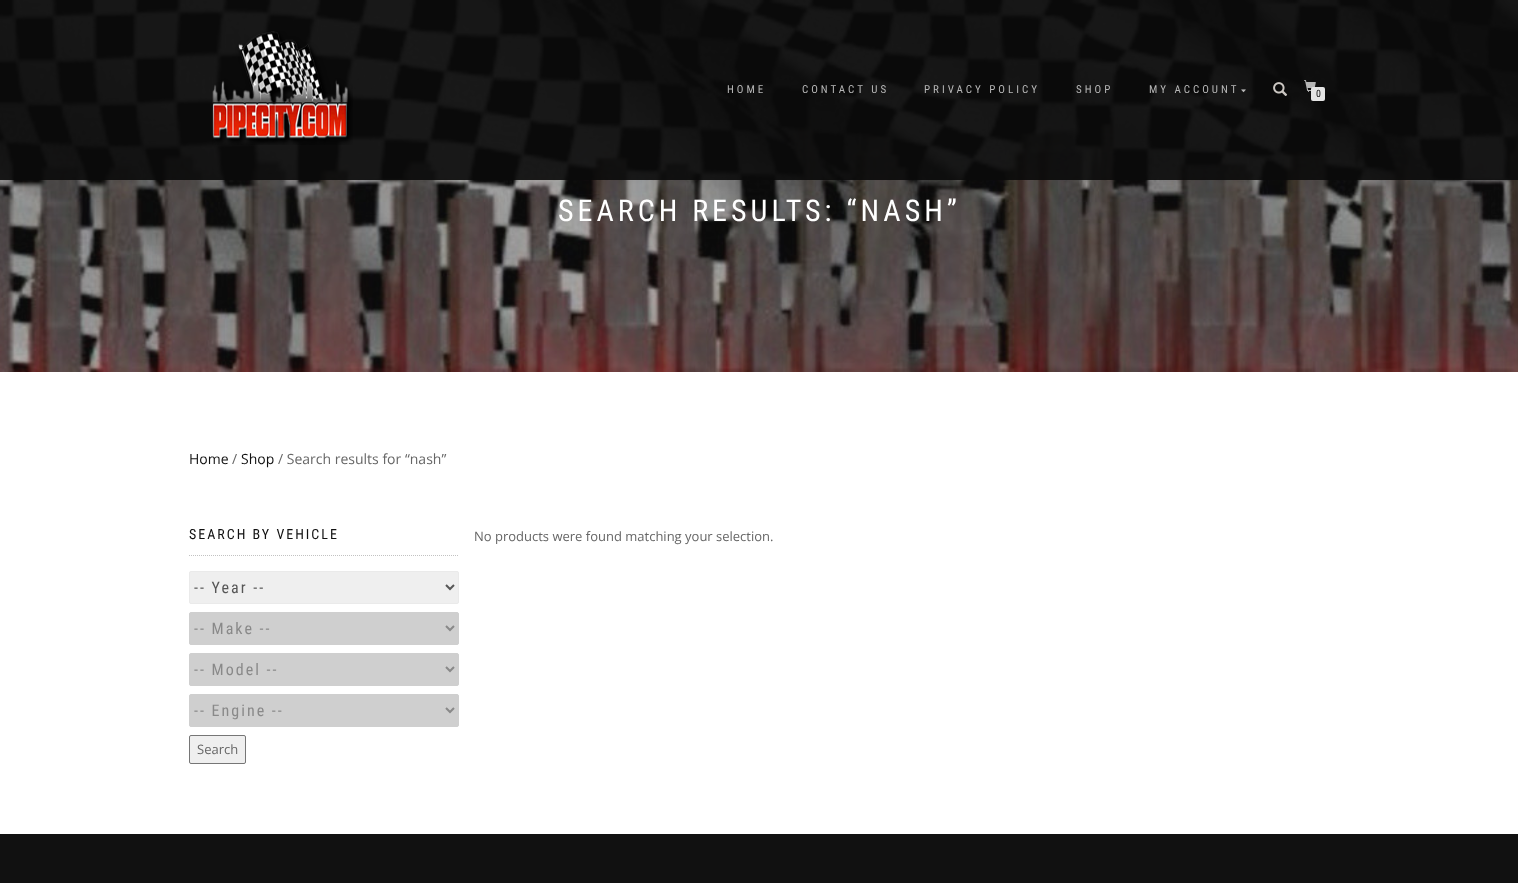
async function draw(canvas) {
	canvas.width = 1518;
	canvas.height = 883;
	const c = canvas.getContext('2d');
	c.miterLimit = 4;
	c.fontKerning = 'normal';
	async function loadImage(src) {
		const img = new Image();
		img.src = src;
		await img.decode();
		return img;
	}

	c.fillStyle = '#fff';
	c.fillRect(0, 0, 1518, 883);
	c.drawImage(await loadImage('img5.png'), 0, 0, 1518, 372);
	c.fillStyle = '#0a0a0ae6';
	c.fillRect(0, 0, 1518, 180);
	c.drawImage(await loadImage('img1.png'), 212, 31, 141, 114);
	c.letterSpacing = '3px';
	c.font = '11px Roboto Condensed';
	c.fillStyle = '#b7b7b7';
	for (const [text, x, y] of [
		['HOME', 727, 93],
		['CONTACT US', 802, 93],
		['PRIVACY POLICY', 924, 93],
		['SHOP', 1076, 93],
		['MY ACCOUNT', 1149, 93],
	]) {
		c.fillText(text, x, y);
	}
	c.drawImage(await loadImage('img2.png'), 1241, 89, 5, 4);
	c.drawImage(await loadImage('img3.png'), 1273, 82, 15, 14);
	c.drawImage(await loadImage('img4.png'), 1304, 80, 12, 12);
	c.fillStyle = '#e5e5e5';
	c.beginPath();
	c.roundRect(1311, 87, 14, 14, 2);
	c.fill();
	c.letterSpacing = '0px';
	c.font = '10px Roboto Condensed';
	c.fillStyle = '#111';
	c.fillText('0', 1316, 97);
	c.letterSpacing = '4px';
	c.font = '30px Roboto Condensed';
	c.fillStyle = '#fff';
	c.fillText('SEARCH RESULTS: “NASH”', 558, 221);
	c.letterSpacing = '0px';
	c.font = '14px Open Sans';
	c.fillStyle = '#111';
	c.fillText('Home', 189, 464);
	c.fillStyle = '#666';
	c.fillText('/', 232, 464);
	c.fillStyle = '#111';
	c.fillText('Shop', 241, 464);
	c.fillStyle = '#666';
	c.fillText('/ Search results for “nash”', 278, 464);
	c.beginPath();
	c.moveTo(189, 555.5);
	c.lineTo(459, 555.5);
	c.strokeStyle = '#c2c2c2';
	c.setLineDash([1, 1]);
	c.stroke();
	c.letterSpacing = '2px';
	c.font = '14px Roboto Condensed';
	c.fillStyle = '#111';
	c.fillText('SEARCH BY VEHICLE', 189, 539);
	c.fillStyle = '#efefef';
	c.beginPath();
	c.roundRect(189.5, 571.5, 269, 32, 1.5);
	c.fill();
	c.strokeStyle = '#eaeaea';
	c.setLineDash([]);
	c.stroke();
	c.beginPath();
	c.moveTo(446, 585);
	c.lineTo(450, 589);
	c.lineTo(454, 585);
	c.strokeStyle = '#575757';
	c.lineWidth = 2;
	c.stroke();
	c.font = '16px Roboto Condensed';
	c.fillStyle = '#575757';
	c.fillText('-- Year --', 194, 593);
	c.fillStyle = '#cfcfcf';
	c.beginPath();
	c.roundRect(189.5, 612.5, 269, 32, 1.5);
	c.fill();
	c.strokeStyle = '#cfcfcf';
	c.lineWidth = 1;
	c.stroke();
	c.beginPath();
	c.moveTo(446, 626);
	c.lineTo(450, 630);
	c.lineTo(454, 626);
	c.strokeStyle = '#898989';
	c.lineWidth = 2;
	c.stroke();
	c.fillStyle = '#898989';
	c.fillText('-- Make --', 194, 634);
	c.fillStyle = '#cfcfcf';
	c.beginPath();
	c.roundRect(189.5, 653.5, 269, 32, 1.5);
	c.fill();
	c.strokeStyle = '#cfcfcf';
	c.lineWidth = 1;
	c.stroke();
	c.beginPath();
	c.moveTo(446, 667);
	c.lineTo(450, 671);
	c.lineTo(454, 667);
	c.strokeStyle = '#898989';
	c.lineWidth = 2;
	c.stroke();
	c.fillStyle = '#898989';
	c.fillText('-- Model --', 194, 675);
	c.fillStyle = '#cfcfcf';
	c.beginPath();
	c.roundRect(189.5, 694.5, 269, 32, 1.5);
	c.fill();
	c.strokeStyle = '#cfcfcf';
	c.lineWidth = 1;
	c.stroke();
	c.beginPath();
	c.moveTo(446, 708);
	c.lineTo(450, 712);
	c.lineTo(454, 708);
	c.strokeStyle = '#898989';
	c.lineWidth = 2;
	c.stroke();
	c.fillStyle = '#898989';
	c.fillText('-- Engine --', 194, 716);
	c.fillStyle = '#efefef';
	c.beginPath();
	c.roundRect(189.5, 735.5, 56, 28, 1.5);
	c.fill();
	c.strokeStyle = '#767676';
	c.lineWidth = 1;
	c.stroke();
	c.letterSpacing = '0px';
	c.font = '13px Open Sans';
	c.fillStyle = '#666';
	c.fillText('Search', 197, 754);
	c.fillText('No products were found matching your selection.', 474, 541);
	c.fillStyle = '#111';
	c.fillRect(0, 834, 1518, 49);
}

draw(document.querySelector('canvas'));
